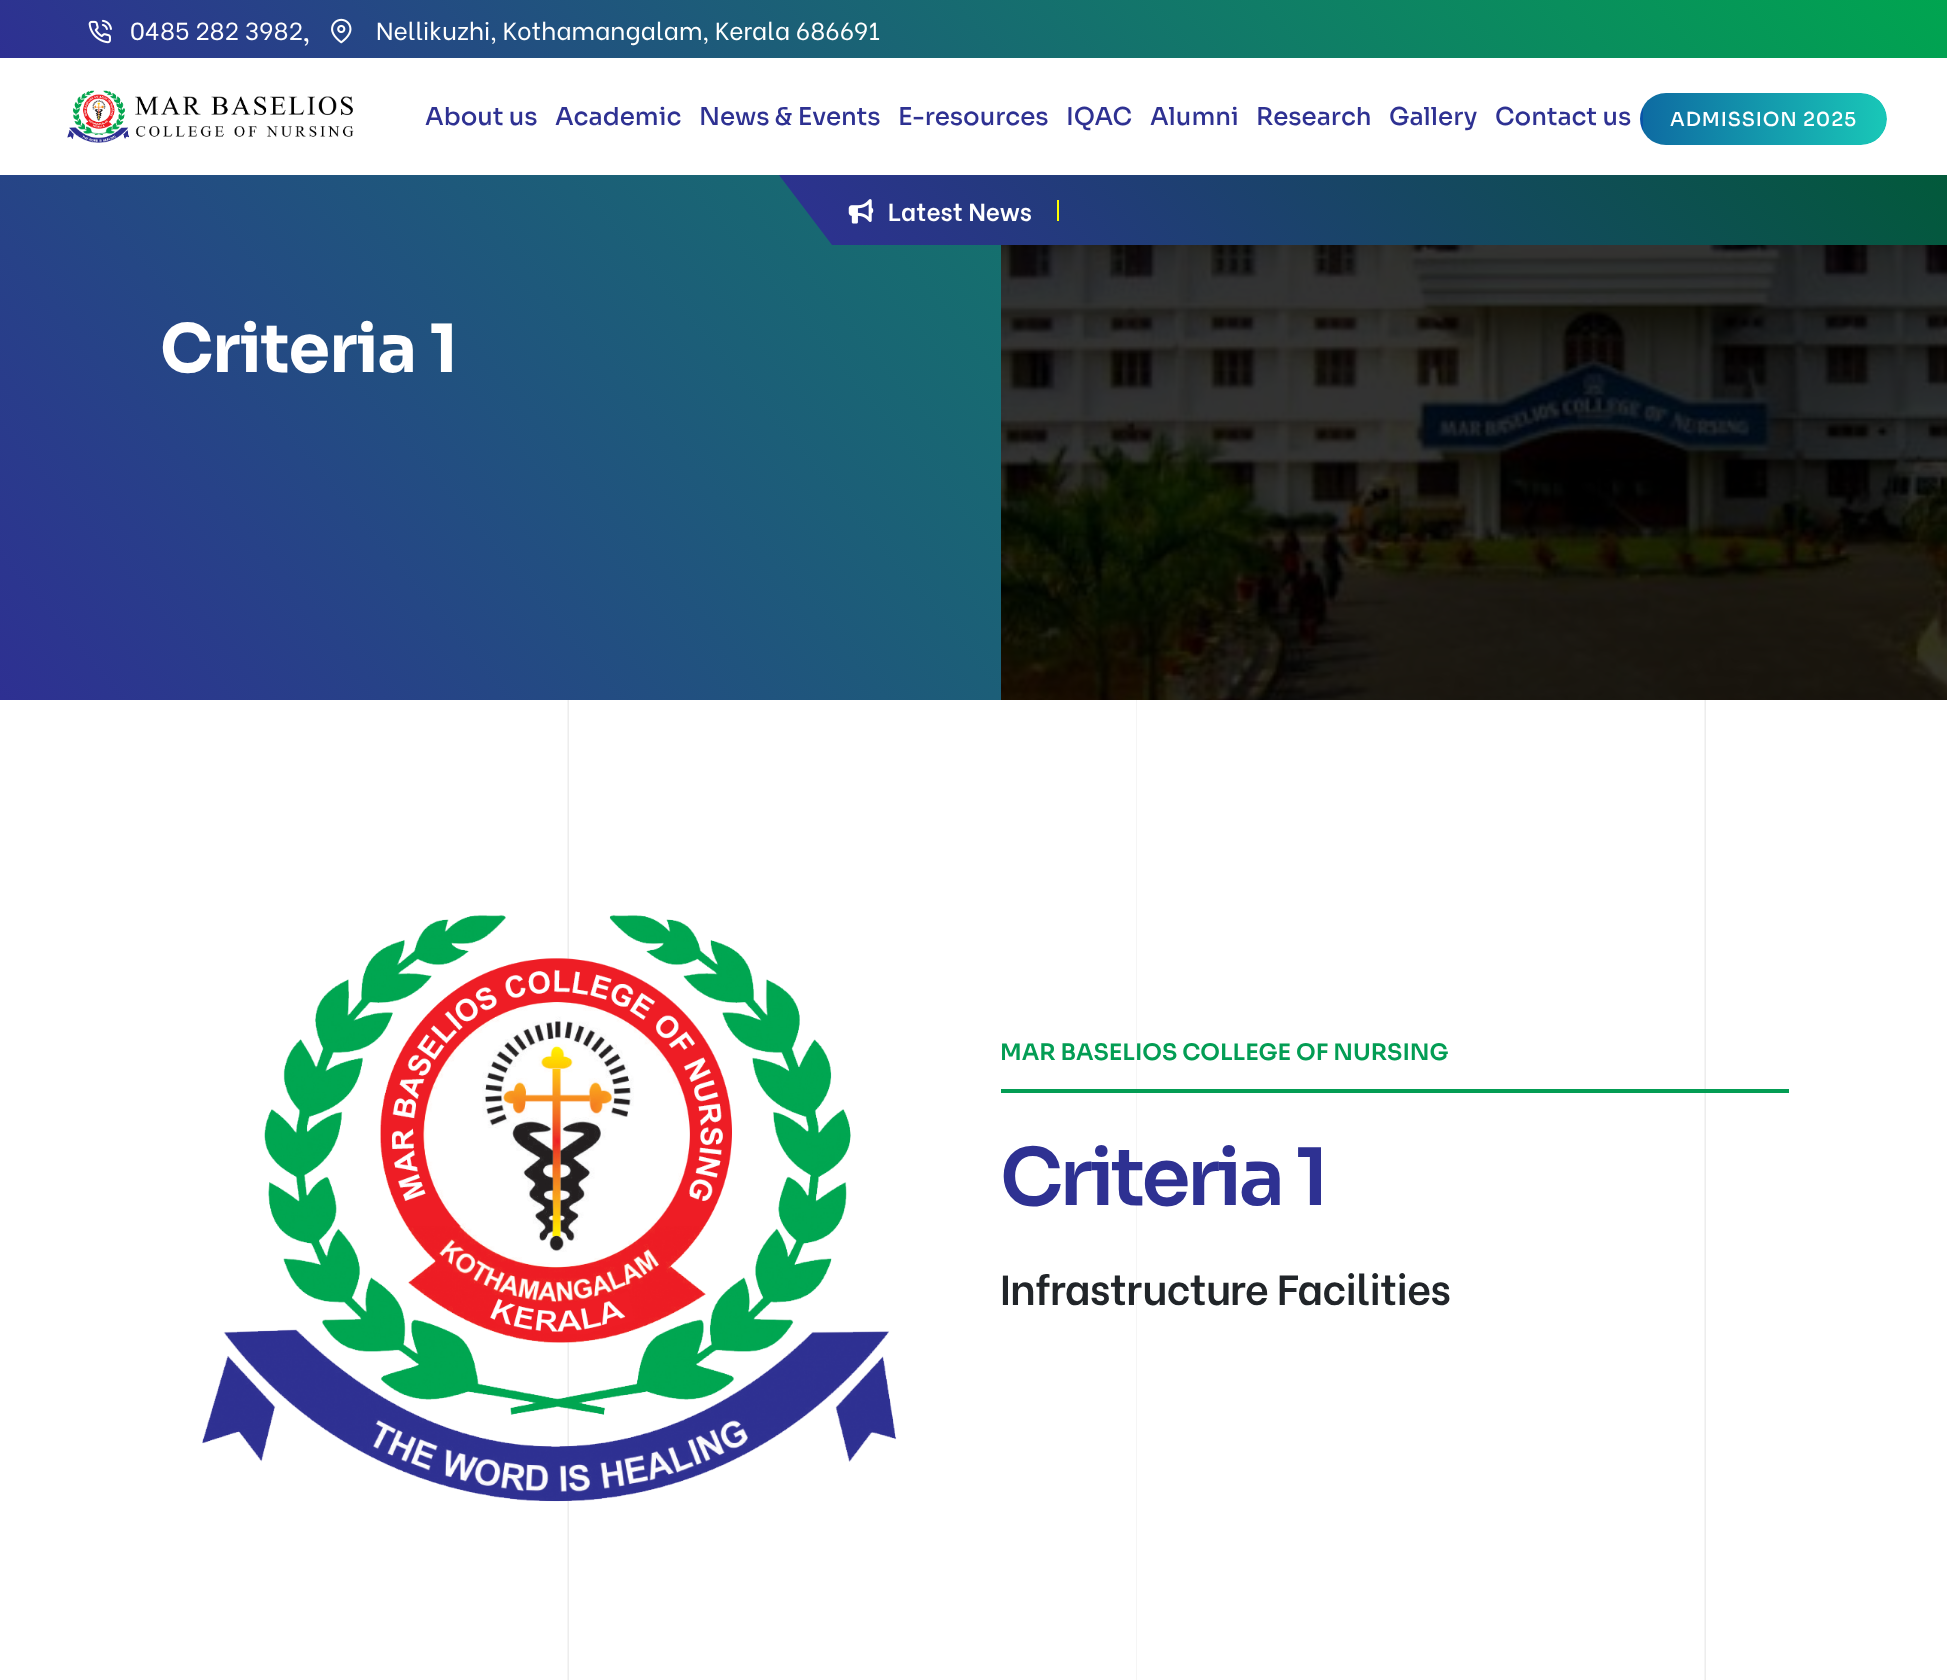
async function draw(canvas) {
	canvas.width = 1947;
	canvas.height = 1680;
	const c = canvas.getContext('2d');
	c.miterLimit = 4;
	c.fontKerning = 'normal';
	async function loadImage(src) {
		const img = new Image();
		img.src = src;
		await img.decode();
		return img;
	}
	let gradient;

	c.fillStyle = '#fff';
	c.fillRect(0, 0, 1947, 1680);
	gradient = c.createLinearGradient(388, 520, 1560, -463);
	gradient.addColorStop(0, '#2e3092');
	gradient.addColorStop(1, '#00a550');
	c.fillStyle = gradient;
	c.fillRect(0, 0, 1947, 58);
	c.drawImage(await loadImage('img1.png'), 88, 19, 24, 25);
	c.font = '24.5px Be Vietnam';
	c.fillStyle = '#fff';
	c.fillText('0485 282 3982', 130, 40);
	c.drawImage(await loadImage('img2.png'), 331, 18, 21, 26);
	c.fillText('Nellikuzhi, Kothamangalam, Kerala 686691', 376, 40);
	c.font = '30px Be Vietnam';
	c.fillText(',', 302, 41);
	c.drawImage(await loadImage('img3.png'), 67, 90, 287, 53);
	c.font = '500 24.5px Sora';
	c.fillStyle = '#2e3192';
	for (const [text, x, y] of [
		['About us', 425, 125],
		['Academic', 555, 125],
		['News & Events', 699, 125],
		['E-resources', 898, 125],
		['IQAC', 1066, 125],
		['Alumni', 1150, 125],
		['Research', 1256, 125],
		['Gallery', 1389, 125],
		['Contact us', 1495, 125],
	]) {
		c.fillText(text, x, y);
	}
	c.save();
	c.beginPath();
	c.roundRect(1640, 93, 247, 52, 26);
	c.clip();
	gradient = c.createLinearGradient(1164, 119, 1643, 119);
	gradient.addColorStop(0, '#0e6ba2');
	gradient.addColorStop(0.5, '#19c6b7');
	gradient.addColorStop(1, '#0953a9');
	c.fillStyle = gradient;
	c.fillRect(1640, 107, 3, 24);
	gradient = c.createLinearGradient(1643, 119, 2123, 119);
	gradient.addColorStop(0, '#0e6ba2');
	gradient.addColorStop(0.5, '#19c6b7');
	gradient.addColorStop(1, '#0953a9');
	c.fillStyle = gradient;
	c.beginPath();
	c.roundRect(1643, 93, 244, 52, [0, 26, 26, 0]);
	c.fill();
	c.restore();
	c.letterSpacing = '0.9px';
	c.font = '500 19.25px Sora';
	c.fillStyle = '#fff';
	c.fillText('ADMISSION 2025', 1670, 126);
	gradient = c.createLinearGradient(230, 974, 1718, -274);
	gradient.addColorStop(0, '#2e3092');
	gradient.addColorStop(1, '#00a550');
	c.fillStyle = gradient;
	c.fillRect(0, 175, 1001, 525);
	gradient = c.createLinearGradient(1003, 512, 1723, -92);
	gradient.addColorStop(0, '#2e3092');
	gradient.addColorStop(1, '#025a3b');
	c.fillStyle = gradient;
	c.beginPath();
	c.moveTo(779, 175);
	c.lineTo(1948, 175);
	c.lineTo(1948, 245);
	c.lineTo(832, 245);
	c.closePath();
	c.fill();
	c.drawImage(await loadImage('img4.png'), 848, 199, 26, 25);
	c.letterSpacing = '0px';
	c.font = '600 24.5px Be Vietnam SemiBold';
	c.fillStyle = '#fff';
	c.fillText('Latest News', 888, 221);
	c.fillStyle = '#ff0';
	c.fillRect(1057, 200, 2, 21);
	c.letterSpacing = '-0.9px';
	c.font = 'bold 66.5px Sora';
	c.fillStyle = '#fff';
	c.fillText('Criteria 1', 160, 372);
	c.drawImage(await loadImage('img5.png'), 1001, 245, 946, 455);
	c.drawImage(await loadImage('img6.png'), 567, 700, 1139, 980);
	c.drawImage(await loadImage('img7.png'), 202, 914, 695, 588);
	c.letterSpacing = '0px';
	c.font = '600 22.75px Sora';
	c.fillStyle = '#039d54';
	c.fillText('MAR BASELIOS COLLEGE OF NURSING', 1000, 1060);
	c.fillRect(1001, 1089, 788, 4);
	c.letterSpacing = '-3.5px';
	c.font = '600 79px Sora';
	c.fillStyle = '#2e3192';
	c.fillText('Criteria 1', 1000, 1205);
	c.letterSpacing = '-0.9px';
	c.font = '600 42px Be Vietnam SemiBold';
	c.fillStyle = '#212529';
	c.fillText('Infrastructure Facilities', 1000, 1305);
}

draw(document.querySelector('canvas'));
